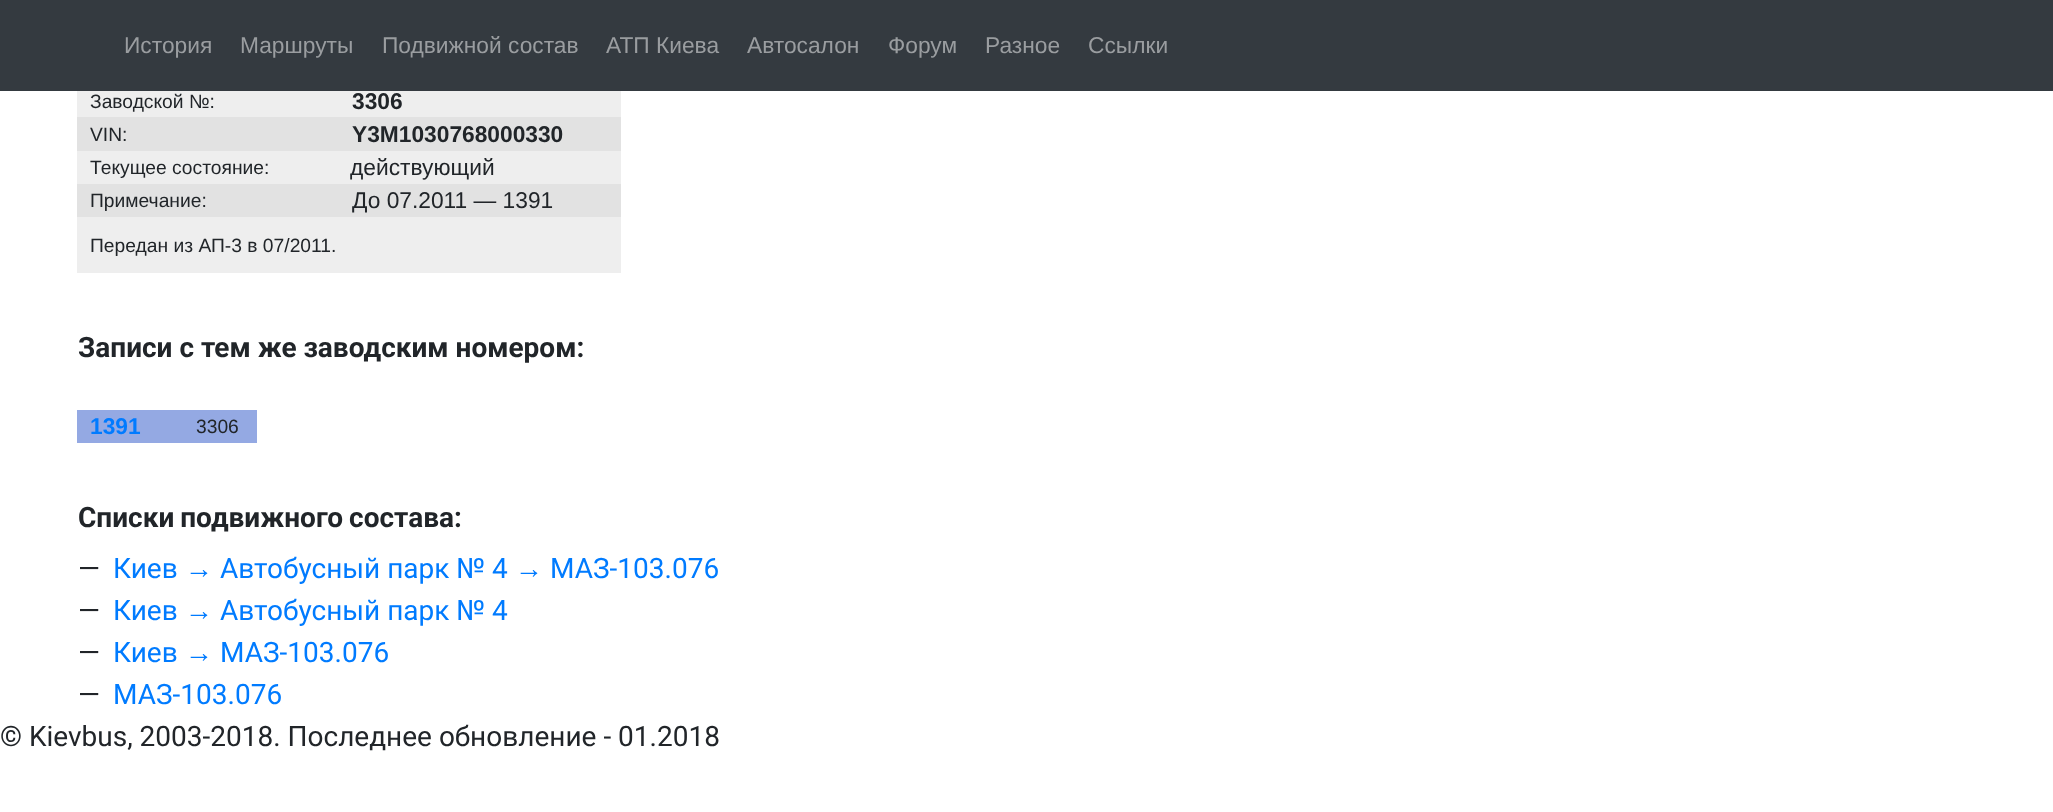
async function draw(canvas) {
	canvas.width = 2053;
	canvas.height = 812;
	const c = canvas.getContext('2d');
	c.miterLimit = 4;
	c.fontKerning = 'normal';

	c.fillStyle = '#fff';
	c.fillRect(0, 0, 2053, 812);
	c.fillStyle = '#343a40';
	c.fillRect(0, 0, 2053, 91);
	c.font = '22.75px Liberation Sans';
	c.fillStyle = '#9a9da0';
	for (const [text, x, y] of [
		['История', 124, 53],
		['Маршруты', 240, 53],
		['Подвижной состав', 382, 53],
		['АТП Киева', 606, 53],
		['Автосалон', 747, 53],
		['Форум', 888, 53],
		['Разное', 985, 53],
		['Ссылки', 1088, 53],
	]) {
		c.fillText(text, x, y);
	}
	c.fillStyle = '#eee';
	c.fillRect(77, 91, 544, 26);
	c.font = '19.25px Liberation Sans';
	c.fillStyle = '#212529';
	c.fillText('Заводской №:', 90, 108);
	c.font = 'bold 22.75px Liberation Sans';
	c.fillText('3306', 352, 109);
	c.fillStyle = '#e2e2e2';
	c.fillRect(77, 117, 544, 34);
	c.font = '19.25px Liberation Sans';
	c.fillStyle = '#212529';
	c.fillText('VIN:', 90, 141);
	c.font = 'bold 22.75px Liberation Sans';
	c.fillText('Y3M1030768000330', 352, 142);
	c.fillStyle = '#eee';
	c.fillRect(77, 151, 544, 33);
	c.font = '19.25px Liberation Sans';
	c.fillStyle = '#212529';
	c.fillText('Текущее состояние:', 90, 174);
	c.font = '22.75px Liberation Sans';
	c.fillText('действующий', 350, 175);
	c.fillStyle = '#e2e2e2';
	c.fillRect(77, 184, 544, 33);
	c.font = '19.25px Liberation Sans';
	c.fillStyle = '#212529';
	c.fillText('Примечание:', 90, 207);
	c.font = '22.75px Liberation Sans';
	c.fillText('До 07.2011 — 1391', 352, 208);
	c.fillStyle = '#eee';
	c.fillRect(77, 217, 544, 56);
	c.font = '19.25px Liberation Sans';
	c.fillStyle = '#212529';
	c.fillText('Передан из АП-3 в 07/2011.', 90, 252);
	c.font = 'bold 28px Roboto';
	c.fillText('Записи с тем же заводским номером:', 78, 357);
	c.fillStyle = '#94a9e3';
	c.fillRect(77, 410, 180, 33);
	c.font = 'bold 22.75px Liberation Sans';
	c.fillStyle = '#007bff';
	c.fillText('1391', 90, 434);
	c.font = '19.25px Liberation Sans';
	c.fillStyle = '#212529';
	c.fillText('3306', 196, 433);
	c.wordSpacing = '-1px';
	c.font = 'bold 28px Roboto';
	c.fillText('Cписки подвижного состава:', 78, 527);
	c.wordSpacing = '0px';
	c.font = '28px Roboto';
	c.fillText('—', 78, 578);
	c.fillStyle = '#007bff';
	for (const [text, x, y] of [
		['Киев', 113, 578],
		['Автобусный парк № 4', 220, 578],
		['МАЗ-103.076', 550, 578],
	]) {
		c.fillText(text, x, y);
	}
	c.font = '28px Liberation Sans';
	c.fillText('→', 185, 578);
	c.fillText('→', 515, 578);
	c.font = '28px Roboto';
	c.fillStyle = '#212529';
	c.fillText('—', 78, 620);
	c.fillStyle = '#007bff';
	c.fillText('Киев', 113, 620);
	c.fillText('Автобусный парк № 4', 220, 620);
	c.font = '28px Liberation Sans';
	c.fillText('→', 185, 620);
	c.font = '28px Roboto';
	c.fillStyle = '#212529';
	c.fillText('—', 78, 662);
	c.fillStyle = '#007bff';
	c.fillText('Киев', 113, 662);
	c.fillText('МАЗ-103.076', 220, 662);
	c.font = '28px Liberation Sans';
	c.fillText('→', 185, 662);
	c.font = '28px Roboto';
	c.fillStyle = '#212529';
	c.fillText('—', 78, 704);
	c.fillStyle = '#007bff';
	c.fillText('МАЗ-103.076', 113, 704);
	c.fillStyle = '#212529';
	c.fillText('© Kievbus, 2003-2018. Последнее обновление - 01.2018', 0, 746);
}

draw(document.querySelector('canvas'));
